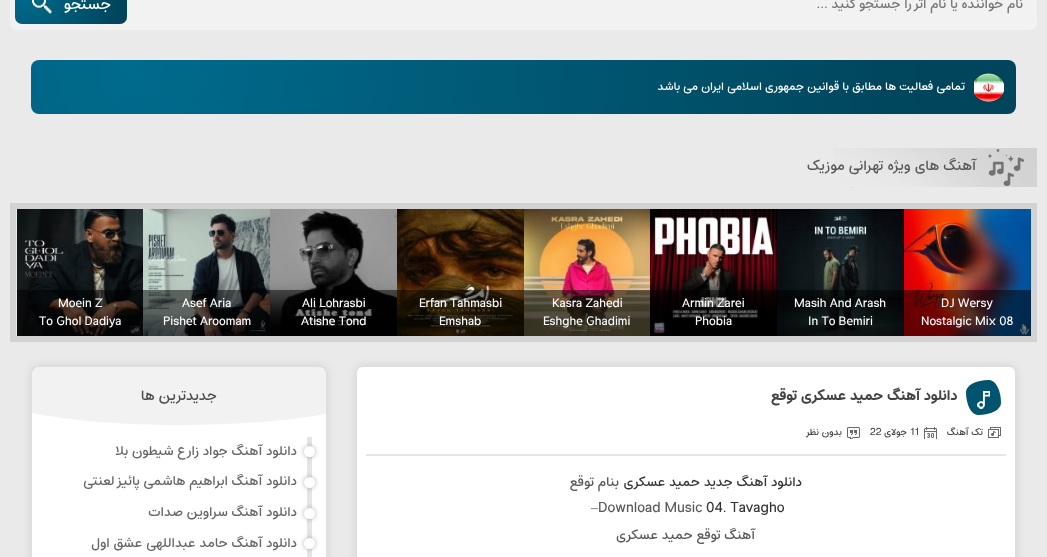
async function draw(canvas) {
	canvas.width = 1047;
	canvas.height = 557;
	const c = canvas.getContext('2d');
	c.miterLimit = 4;
	c.fontKerning = 'normal';
	async function loadImage(src) {
		const img = new Image();
		img.src = src;
		await img.decode();
		return img;
	}
	let gradient;

	c.fillStyle = '#eaeaea';
	c.fillRect(0, 0, 1047, 557);
	c.fillStyle = '#f2f2f2';
	c.beginPath();
	c.roundRect(10, -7, 1027, 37, 7);
	c.fill();
	c.direction = 'rtl';
	c.font = '500 14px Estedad';
	c.fillStyle = '#757575';
	c.fillText('نام خواننده یا نام اثر را جستجو کنید ...', 1023, 8);
	gradient = c.createRadialGradient(26, -6.8, 0, 26, -6.8, 105);
	gradient.addColorStop(0, '#006b8d');
	gradient.addColorStop(0.9, '#00455b');
	c.fillStyle = gradient;
	c.beginPath();
	c.roundRect(15, -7, 112, 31, 7);
	c.fill();
	c.font = '500 16px Estedad';
	c.fillStyle = '#fff';
	c.fillText('جستجو', 111, 9);
	c.drawImage(await loadImage('img1.png'), 32, 0, 20, 14);
	gradient = c.createRadialGradient(130, 71, 0, 130, 71, 888);
	gradient.addColorStop(0, '#006b8d');
	gradient.addColorStop(0.9, '#00455b');
	c.fillStyle = gradient;
	c.beginPath();
	c.roundRect(31, 60, 985, 54, 8);
	c.fill();
	c.drawImage(await loadImage('img2.png'), 974, 72, 30, 30);
	c.font = '500 12px Estedad';
	c.fillStyle = '#fff';
	c.fillText('تمامی فعالیت ها مطابق با قوانین جمهوری اسلامی ایران می باشد', 965, 90);
	c.drawImage(await loadImage('img3.png'), 833, 147, 204, 41);
	c.drawImage(await loadImage('img4.png'), 988, 149, 36, 37);
	c.font = '500 15px Estedad';
	c.fillStyle = '#585858';
	c.fillText('آهنگ های ویژه تهرانی موزیک', 976, 170);
	c.strokeStyle = '#d2d2d2';
	c.lineWidth = 6;
	c.strokeRect(13, 206, 1021, 133);
	c.drawImage(await loadImage('img5.png'), 904, 209, 127, 127);
	c.fillStyle = '#00000080';
	c.fillRect(904, 290, 127, 46);
	c.direction = 'ltr';
	c.font = '500 12px Estedad';
	c.fillStyle = '#fff';
	c.fillText('DJ Wersy', 941, 307);
	c.fillText('Nostalgic Mix 08', 921, 325);
	c.drawImage(await loadImage('img6.png'), 777, 209, 127, 127);
	c.fillStyle = '#00000080';
	c.fillRect(777, 290, 127, 46);
	c.fillStyle = '#fff';
	c.fillText('Masih And Arash', 794, 307);
	c.fillText('In To Bemiri', 808, 325);
	c.drawImage(await loadImage('img7.png'), 650, 209, 127, 127);
	c.fillStyle = '#00000080';
	c.fillRect(650, 290, 127, 45);
	c.fillStyle = '#fff';
	c.fillText('Armin Zarei', 682, 307);
	c.fillText('Phobia', 695, 325);
	c.drawImage(await loadImage('img8.png'), 524, 209, 126, 127);
	c.fillStyle = '#00000080';
	c.fillRect(524, 290, 126, 46);
	c.fillStyle = '#fff';
	c.fillText('Kasra Zahedi', 552, 307);
	c.fillText('Eshghe Ghadimi', 543, 325);
	c.drawImage(await loadImage('img9.png'), 397, 209, 127, 127);
	c.fillStyle = '#00000080';
	c.fillRect(397, 290, 127, 46);
	c.fillStyle = '#fff';
	c.fillText('Erfan Tahmasbi', 419, 307);
	c.fillText('Emshab', 439, 325);
	c.drawImage(await loadImage('img10.png'), 270, 209, 127, 127);
	c.fillStyle = '#00000080';
	c.fillRect(270, 290, 127, 41);
	c.fillStyle = '#fff';
	c.fillText('Ali Lohrasbi', 302, 307);
	c.fillText('Atishe Tond', 301, 325);
	c.drawImage(await loadImage('img11.png'), 143, 209, 127, 127);
	c.fillStyle = '#00000080';
	c.fillRect(143, 290, 127, 46);
	c.fillStyle = '#fff';
	c.fillText('Asef Aria', 182, 307);
	c.fillText('Pishet Aroomam', 163, 325);
	c.drawImage(await loadImage('img12.png'), 17, 209, 126, 127);
	c.fillStyle = '#00000080';
	c.fillRect(17, 290, 126, 46);
	c.fillStyle = '#fff';
	c.fillText('Moein Z', 58, 307);
	c.fillText('To Ghol Dadiya', 39, 325);
	c.fillStyle = '#0000001a';
	c.filter = 'blur(5px)';
	c.beginPath();
	c.roundRect(356, 366, 660, 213, 7);
	c.fill();
	c.filter = 'none';
	c.fillStyle = '#fff';
	c.beginPath();
	c.roundRect(356, 366, 660, 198, 7);
	c.fill();
	c.beginPath();
	c.roundRect(356.5, 366.5, 659, 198, 6.5);
	c.strokeStyle = '#00000021';
	c.lineWidth = 1;
	c.stroke();
	c.fillStyle = '#e5e5e5';
	c.fillRect(366, 454, 640, 2);
	c.fillStyle = '#00546f';
	c.beginPath();
	c.moveTo(989, 380);
	c.bezierCurveTo(995.5, 380, 1001, 390, 1001, 403);
	c.bezierCurveTo(1001, 409.5, 991, 415, 978, 415);
	c.bezierCurveTo(971.5, 415, 966, 405, 966, 392);
	c.bezierCurveTo(966, 385.5, 976, 380, 989, 380);
	c.closePath();
	c.fill();
	c.drawImage(await loadImage('img13.png'), 977, 391, 13, 18);
	c.direction = 'rtl';
	c.font = 'bold 15px Estedad';
	c.fillStyle = '#444';
	c.fillText('دانلود آهنگ حمید عسکری توقع', 957, 400);
	c.drawImage(await loadImage('img14.png'), 988, 427, 13, 11);
	c.font = '500 10px Estedad';
	c.fillText('تک آهنگ', 983, 435);
	c.drawImage(await loadImage('img15.png'), 924, 427, 13, 12);
	c.direction = 'ltr';
	c.fillText('11', 910, 435);
	c.direction = 'rtl';
	c.fillText('جولای', 907, 435);
	c.direction = 'ltr';
	c.fillText('22', 870, 435);
	c.drawImage(await loadImage('img16.png'), 847, 427, 13, 12);
	c.direction = 'rtl';
	c.fillText('بدون نظر', 842, 435);
	c.font = '500 14px Estedad';
	c.fillStyle = '#333';
	c.fillText('دانلود آهنگ جدید', 802, 486);
	c.fillText('حمید عسکری', 700, 486);
	c.fillStyle = '#585858';
	c.fillText('بنام', 619, 486);
	c.fillText('توقع', 594, 486);
	c.direction = 'ltr';
	c.fillStyle = '#333';
	c.fillText('04. Tavagho', 706, 512);
	c.fillStyle = '#585858';
	c.fillText('Download Music', 598, 512);
	c.font = '14px Liberation Serif';
	c.fillText('–', 591, 512);
	c.direction = 'rtl';
	c.font = '500 14px Estedad';
	c.fillText('آهنگ توقع حمید عسکری', 755, 539);
	c.fillStyle = '#0000001a';
	c.filter = 'blur(5px)';
	c.beginPath();
	c.roundRect(31, 366, 296, 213, 7);
	c.fill();
	c.filter = 'none';
	c.fillStyle = '#fff';
	c.beginPath();
	c.roundRect(31, 366, 296, 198, 7);
	c.fill();
	c.fillStyle = '#00000021';
	c.beginPath();
	c.moveTo(38, 366);
	c.bezierCurveTo(36, 366, 34, 367, 33, 368);
	c.lineTo(34, 369);
	c.lineTo(37, 367);
	c.lineTo(320, 367);
	c.bezierCurveTo(322, 367, 323, 368, 324, 369);
	c.lineTo(325, 368);
	c.bezierCurveTo(324, 367, 322, 366, 320, 366);
	c.closePath();
	c.fill();
	c.beginPath();
	c.moveTo(327, 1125);
	c.lineTo(327, 373);
	c.bezierCurveTo(327, 371, 326, 369, 325, 368);
	c.lineTo(324, 369);
	c.bezierCurveTo(325, 370, 326, 372, 326, 373);
	c.lineTo(326, 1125);
	c.lineTo(326, 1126);
	c.lineTo(326, 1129);
	c.closePath();
	c.fill();
	c.beginPath();
	c.moveTo(31, 373);
	c.lineTo(31, 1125);
	c.lineTo(32, 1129);
	c.lineTo(32, 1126);
	c.lineTo(32, 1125);
	c.lineTo(32, 373);
	c.bezierCurveTo(32, 372, 33, 370, 34, 369);
	c.lineTo(33, 368);
	c.bezierCurveTo(32, 369, 31, 371, 31, 373);
	c.closePath();
	c.fill();
	c.fillStyle = '#0000000d';
	c.beginPath();
	c.moveTo(38, 367);
	c.lineTo(320, 367);
	c.bezierCurveTo(323, 367, 326, 370, 326, 373);
	c.lineTo(326, 414);
	c.bezierCurveTo(287, 421, 236, 425, 179, 425);
	c.bezierCurveTo(123, 425, 71, 421, 32, 413);
	c.lineTo(32, 373);
	c.bezierCurveTo(32, 370, 35, 367, 38, 367);
	c.closePath();
	c.fill();
	c.font = '500 15px Estedad';
	c.fillStyle = '#4b4b4b';
	c.fillText('جدیدترین ها', 217, 400);
	c.fillStyle = '#e5e5e5';
	c.fillRect(307, 437, 5, 120);
	c.fillStyle = '#0000004d';
	c.filter = 'blur(2.5px)';
	c.beginPath();
	c.roundRect(304, 446, 11, 11, 5.5);
	c.fill();
	c.filter = 'none';
	c.fillStyle = '#fff';
	c.beginPath();
	c.arc(309.5, 451.5, 5.5, 0, 2 * Math.PI);
	c.fill();
	c.font = '500 14px Estedad';
	c.fillStyle = '#666';
	c.fillText('دانلود آهنگ جواد زارع شیطون بلا', 297, 455);
	c.fillStyle = '#0000004d';
	c.filter = 'blur(2.5px)';
	c.beginPath();
	c.roundRect(304, 477, 11, 11, 5.5);
	c.fill();
	c.filter = 'none';
	c.fillStyle = '#fff';
	c.beginPath();
	c.arc(309.5, 482.5, 5.5, 0, 2 * Math.PI);
	c.fill();
	c.fillStyle = '#666';
	c.fillText('دانلود آهنگ ابراهیم هاشمی پائیز لعنتی', 297, 485);
	c.fillStyle = '#0000004d';
	c.filter = 'blur(2.5px)';
	c.beginPath();
	c.roundRect(304, 508, 11, 11, 5.5);
	c.fill();
	c.filter = 'none';
	c.fillStyle = '#fff';
	c.beginPath();
	c.arc(309.5, 513.5, 5.5, 0, 2 * Math.PI);
	c.fill();
	c.fillStyle = '#666';
	c.fillText('دانلود آهنگ سراوین صدات', 297, 516);
	c.fillStyle = '#0000004d';
	c.filter = 'blur(2.5px)';
	c.beginPath();
	c.roundRect(304, 538, 11, 11, 5.5);
	c.fill();
	c.filter = 'none';
	c.fillStyle = '#fff';
	c.beginPath();
	c.arc(309.5, 543.5, 5.5, 0, 2 * Math.PI);
	c.fill();
	c.fillStyle = '#666';
	c.fillText('دانلود آهنگ حامد عبداللهی عشق اول', 297, 547);
}

draw(document.querySelector('canvas'));
